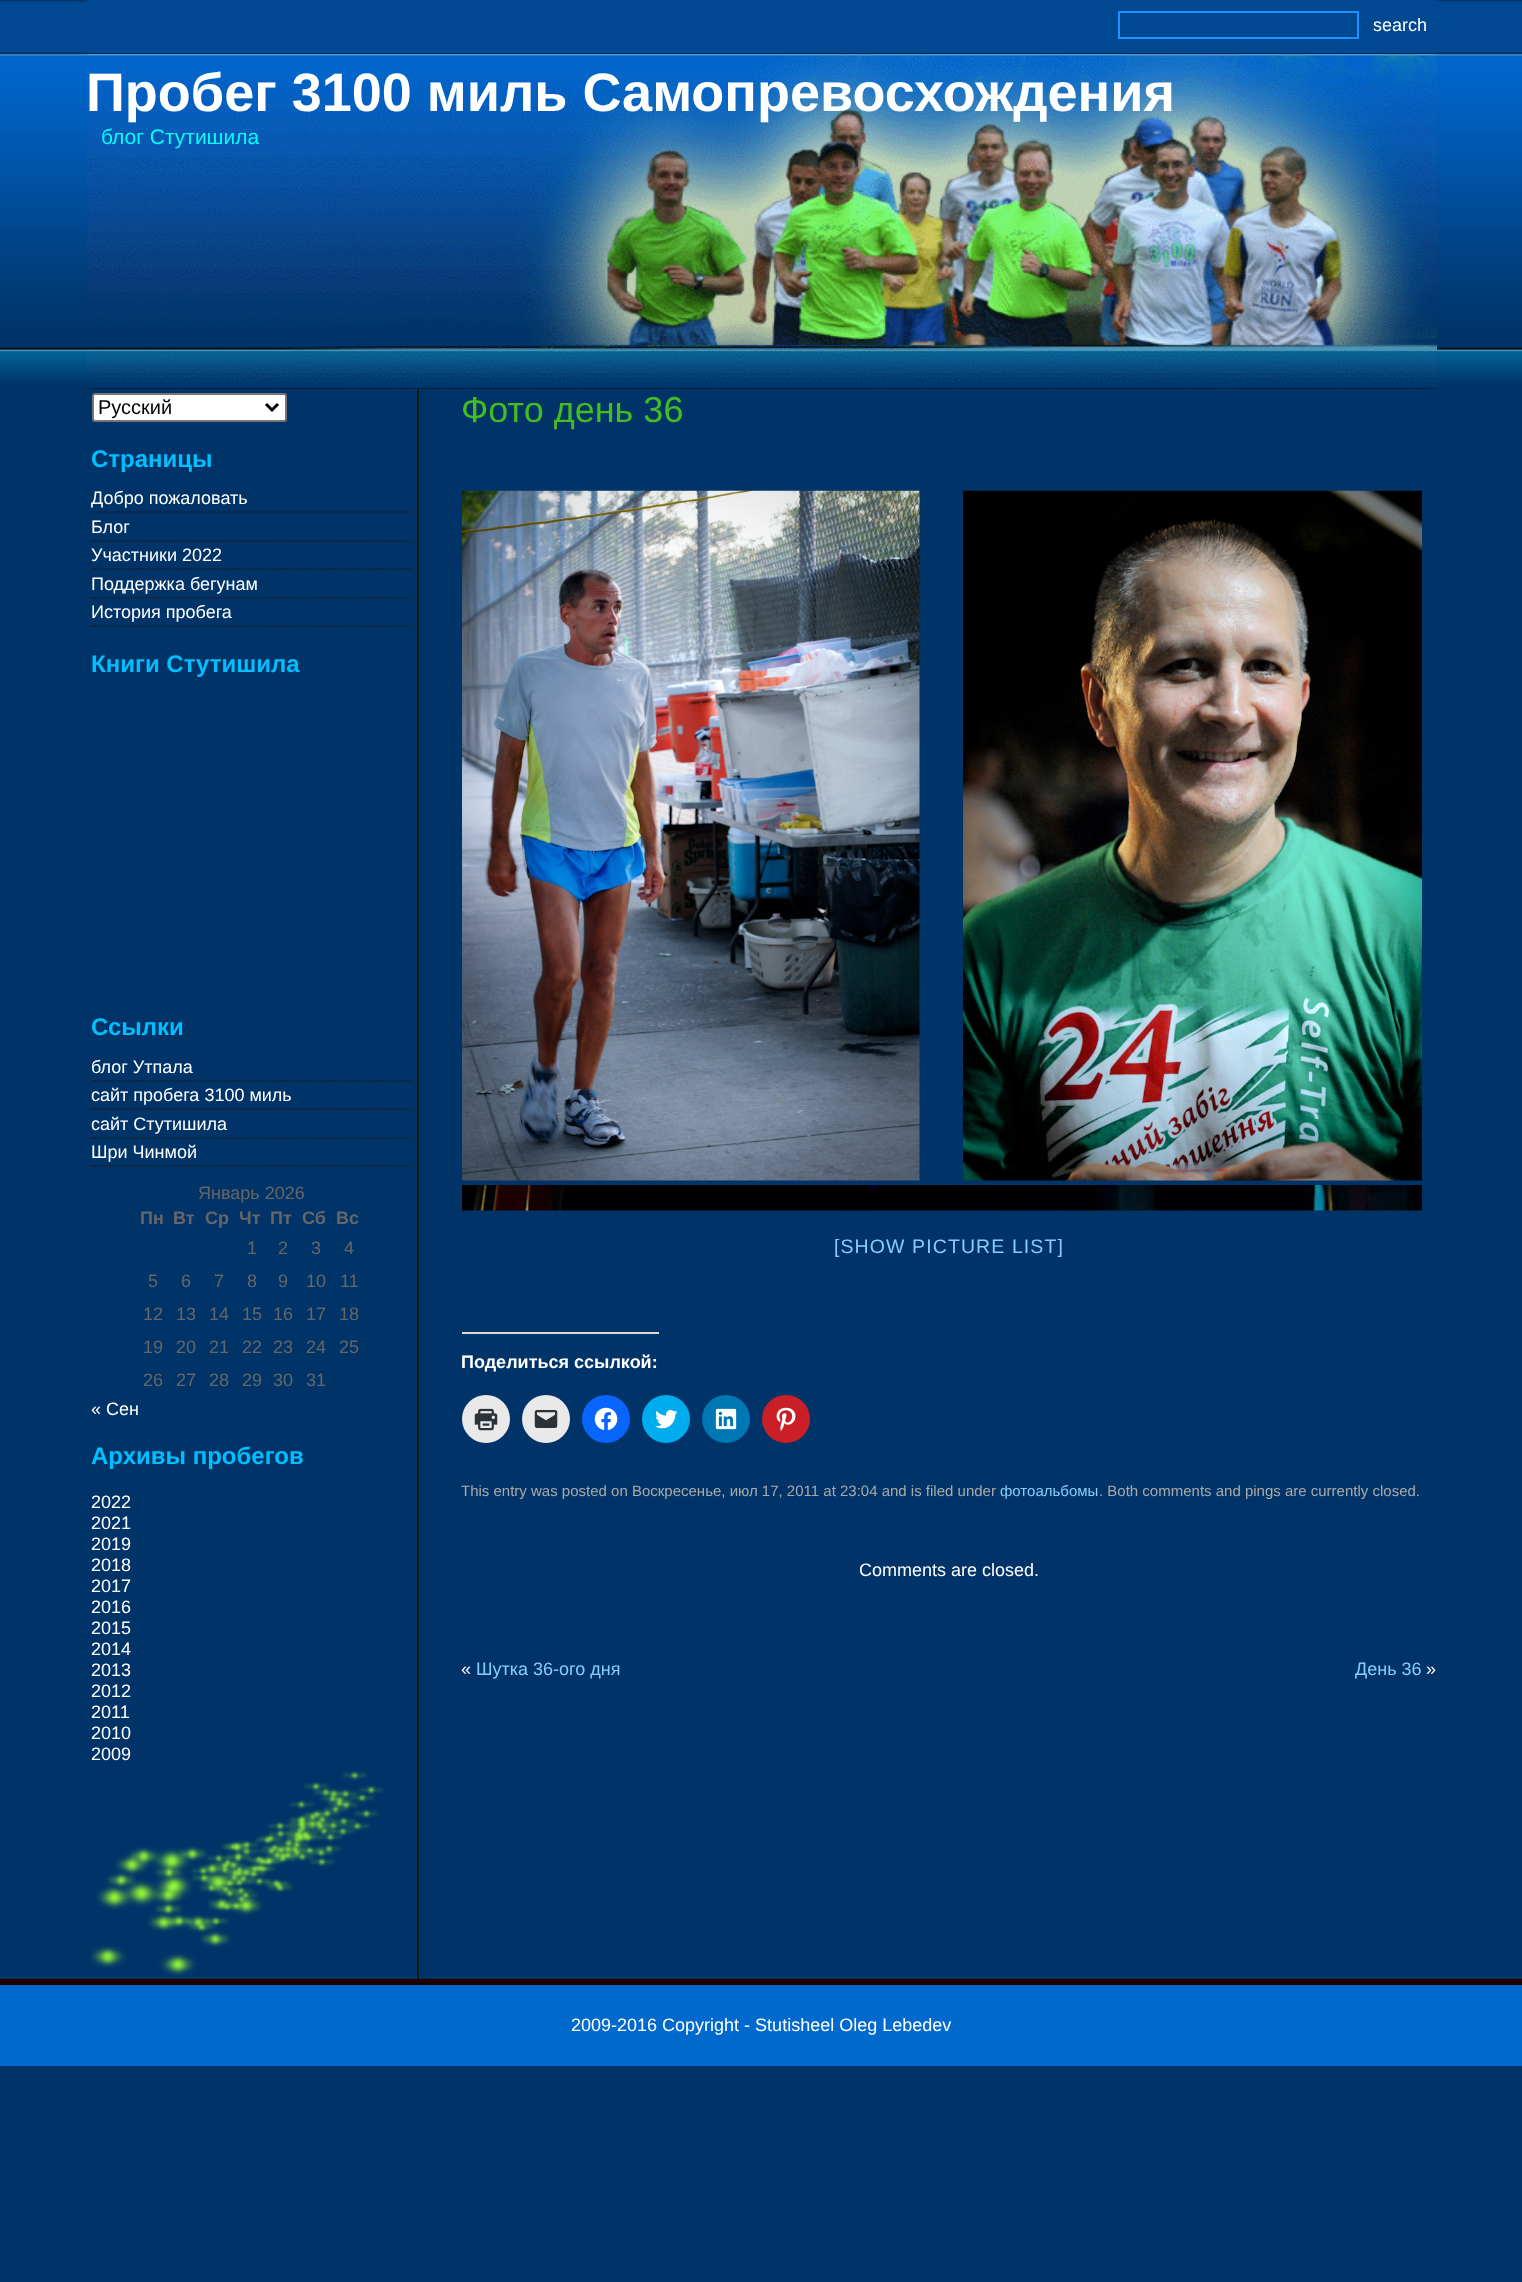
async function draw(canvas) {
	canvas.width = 1522;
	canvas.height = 2282;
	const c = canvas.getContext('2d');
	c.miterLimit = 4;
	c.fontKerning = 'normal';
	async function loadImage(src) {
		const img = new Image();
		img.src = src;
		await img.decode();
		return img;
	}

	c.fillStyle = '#003469';
	c.fillRect(0, 0, 1522, 2282);
	c.drawImage(await loadImage('img1.png'), 0, 1, 1522, 382);
	c.fillStyle = '#004891';
	c.fillRect(87, 0, 1350, 53);
	c.fillStyle = '#002448';
	c.fillRect(87, 53, 1350, 1);
	c.strokeStyle = '#1e90ff';
	c.lineWidth = 2;
	c.strokeRect(1119, 12, 239, 26);
	c.font = '18px Liberation Sans';
	c.fillStyle = '#fff';
	c.fillText('search', 1373, 31);
	c.fillStyle = '#0e0e0e';
	c.fillRect(87, 388, 1350, 1);
	c.drawImage(await loadImage('img2.png'), 87, 54, 1350, 335);
	c.font = 'bold 54px Liberation Sans';
	c.fillStyle = '#fff';
	c.fillText('Пробег 3100 миль Самопревосхождения', 86, 111);
	c.font = '21px Liberation Sans';
	c.fillStyle = '#0ff';
	c.fillText('блог Стутишила', 101, 144);
	c.fillStyle = '#1a1a1a';
	c.fillRect(417, 389, 2, 1590);
	c.fillStyle = '#fff';
	c.beginPath();
	c.roundRect(93, 394, 193, 27, 2);
	c.fill();
	c.strokeStyle = '#767676';
	c.stroke();
	c.beginPath();
	c.moveTo(266, 404);
	c.lineTo(272, 410);
	c.lineTo(278, 404);
	c.strokeStyle = '#000';
	c.lineWidth = 3;
	c.stroke();
	c.font = '20px Liberation Sans';
	c.fillStyle = '#000';
	c.fillText('Русский', 98, 414);
	c.font = 'bold 24px Liberation Sans';
	c.fillStyle = '#00bfff';
	c.fillText('Страницы', 91, 467);
	c.beginPath();
	c.moveTo(91.5, 512);
	c.lineTo(412.5, 512);
	c.strokeStyle = '#1a1a1a';
	c.lineWidth = 1.5;
	c.setLineDash([1.5, 1.5]);
	c.stroke();
	c.font = '18px Liberation Sans';
	c.fillStyle = '#fff';
	c.fillText('Добро пожаловать', 91, 504);
	c.beginPath();
	c.moveTo(91.5, 541);
	c.lineTo(412.5, 541);
	c.stroke();
	c.fillText('Блог', 91, 533);
	c.beginPath();
	c.moveTo(91.5, 569);
	c.lineTo(412.5, 569);
	c.stroke();
	c.fillText('Участники 2022', 91, 561);
	c.beginPath();
	c.moveTo(91.5, 598);
	c.lineTo(412.5, 598);
	c.stroke();
	c.fillText('Поддержка бегунам', 91, 590);
	c.beginPath();
	c.moveTo(91.5, 626);
	c.lineTo(412.5, 626);
	c.stroke();
	c.fillText('История пробега', 91, 618);
	c.font = 'bold 24px Liberation Sans';
	c.fillStyle = '#00bfff';
	c.fillText('Книги Стутишила', 91, 672);
	c.fillText('Ссылки', 91, 1035);
	c.beginPath();
	c.moveTo(91.5, 1081);
	c.lineTo(412.5, 1081);
	c.stroke();
	c.font = '18px Liberation Sans';
	c.fillStyle = '#fff';
	c.fillText('блог Утпала', 91, 1073);
	c.beginPath();
	c.moveTo(91.5, 1109);
	c.lineTo(412.5, 1109);
	c.stroke();
	c.fillText('сайт пробега 3100 миль', 91, 1101);
	c.beginPath();
	c.moveTo(91.5, 1138);
	c.lineTo(412.5, 1138);
	c.stroke();
	c.fillText('сайт Стутишила', 91, 1130);
	c.beginPath();
	c.moveTo(91.5, 1166);
	c.lineTo(412.5, 1166);
	c.stroke();
	c.fillText('Шри Чинмой', 91, 1158);
	c.fillStyle = '#666';
	c.fillText('Январь 2026', 198, 1199);
	c.font = 'bold 18px Liberation Sans';
	for (const [text, x, y] of [
		['Пн', 140, 1224],
		['Вт', 173, 1224],
		['Ср', 205, 1224],
		['Чт', 239, 1224],
		['Пт', 270, 1224],
		['Сб', 302, 1224],
		['Вс', 336, 1224],
	]) {
		c.fillText(text, x, y);
	}
	c.font = '18px Liberation Sans';
	for (const [text, x, y] of [
		['1', 247, 1254],
		['2', 278, 1254],
		['3', 311, 1254],
		['4', 344, 1254],
		['5', 148, 1287],
		['6', 181, 1287],
		['7', 214, 1287],
		['8', 247, 1287],
		['9', 278, 1287],
		['10', 306, 1287],
		['11', 340, 1287],
		['12', 143, 1320],
		['13', 176, 1320],
		['14', 209, 1320],
		['15', 242, 1320],
		['16', 273, 1320],
		['17', 306, 1320],
		['18', 339, 1320],
		['19', 143, 1353],
		['20', 176, 1353],
		['21', 209, 1353],
		['22', 242, 1353],
		['23', 273, 1353],
		['24', 306, 1353],
		['25', 339, 1353],
		['26', 143, 1386],
		['27', 176, 1386],
		['28', 209, 1386],
		['29', 242, 1386],
		['30', 273, 1386],
		['31', 306, 1386],
	]) {
		c.fillText(text, x, y);
	}
	c.fillStyle = '#fff';
	c.fillText('« Сен', 91, 1415);
	c.font = 'bold 24px Liberation Sans';
	c.fillStyle = '#00bfff';
	c.fillText('Архивы пробегов', 91, 1464);
	c.font = '18px Liberation Sans';
	c.fillStyle = '#fff';
	for (const [text, x, y] of [
		['2022', 91, 1508],
		['2021', 91, 1529],
		['2019', 91, 1550],
		['2018', 91, 1571],
		['2017', 91, 1592],
		['2016', 91, 1613],
		['2015', 91, 1634],
		['2014', 91, 1655],
		['2013', 91, 1676],
		['2012', 91, 1697],
		['2011', 91, 1718],
		['2010', 91, 1739],
		['2009', 91, 1760],
	]) {
		c.fillText(text, x, y);
	}
	c.drawImage(await loadImage('img3.png'), 90, 1771, 294, 205);
	c.font = '36px Liberation Sans';
	c.fillStyle = '#44bd23';
	c.fillText('Фото день 36', 461, 422);
	c.drawImage(await loadImage('img4.png'), 462, 490, 458, 691);
	c.drawImage(await loadImage('img5.png'), 963, 490, 459, 691);
	c.drawImage(await loadImage('img6.png'), 462, 1185, 960, 26);
	c.letterSpacing = '1.1px';
	c.font = '19.5px Liberation Sans';
	c.fillStyle = '#87cefa';
	c.fillText('[SHOW PICTURE LIST]', 834, 1253);
	c.fillStyle = '#dcdcde';
	c.fillRect(462, 1332, 197, 2);
	c.letterSpacing = '0px';
	c.font = 'bold 18px Liberation Sans';
	c.fillStyle = '#fff';
	c.fillText('Поделиться ссылкой:', 461, 1368);
	c.fillStyle = '#e9e9e9';
	c.beginPath();
	c.arc(486, 1419, 24, 0, 2 * Math.PI);
	c.fill();
	c.drawImage(await loadImage('img7.png'), 474, 1408, 24, 23);
	c.beginPath();
	c.arc(546, 1419, 24, 0, 2 * Math.PI);
	c.fill();
	c.drawImage(await loadImage('img8.png'), 534, 1410, 24, 18);
	c.fillStyle = '#0866ff';
	c.beginPath();
	c.arc(606, 1419, 24, 0, 2 * Math.PI);
	c.fill();
	c.drawImage(await loadImage('img9.png'), 594, 1407, 24, 23);
	c.fillStyle = '#00acee';
	c.beginPath();
	c.arc(666, 1419, 24, 0, 2 * Math.PI);
	c.fill();
	c.drawImage(await loadImage('img10.png'), 655, 1410, 23, 19);
	c.fillStyle = '#0077b5';
	c.beginPath();
	c.arc(726, 1419, 24, 0, 2 * Math.PI);
	c.fill();
	c.drawImage(await loadImage('img11.png'), 715, 1408, 22, 22);
	c.fillStyle = '#ca1f27';
	c.beginPath();
	c.arc(786, 1419, 24, 0, 2 * Math.PI);
	c.fill();
	c.drawImage(await loadImage('img12.png'), 776, 1407, 20, 24);
	c.font = '15px Liberation Sans';
	c.fillStyle = '#aaa';
	c.fillText('This entry was posted on Воскресенье, июл 17, 2011 at 23:04 and is filed under', 461, 1496);
	c.fillStyle = '#87cefa';
	c.fillText('фотоальбомы', 1000, 1496);
	c.fillStyle = '#aaa';
	c.fillText('. Both comments and pings are currently closed.', 1099, 1496);
	c.font = '18px Liberation Sans';
	c.fillStyle = '#fff';
	c.fillText('Comments are closed.', 859, 1576);
	c.fillText('«', 461, 1675);
	c.fillStyle = '#87cefa';
	c.fillText('Шутка 36-ого дня', 476, 1675);
	c.fillText('День 36', 1355, 1675);
	c.fillStyle = '#fff';
	c.fillText('»', 1426, 1675);
	c.fillStyle = '#0069ce';
	c.fillRect(0, 1985, 1522, 81);
	c.fillStyle = '#1e0000';
	c.fillRect(0, 1979, 1522, 6);
	c.fillStyle = '#fff';
	c.fillText('2009-2016 Copyright - Stutisheel Oleg Lebedev', 571, 2031);
}

draw(document.querySelector('canvas'));
